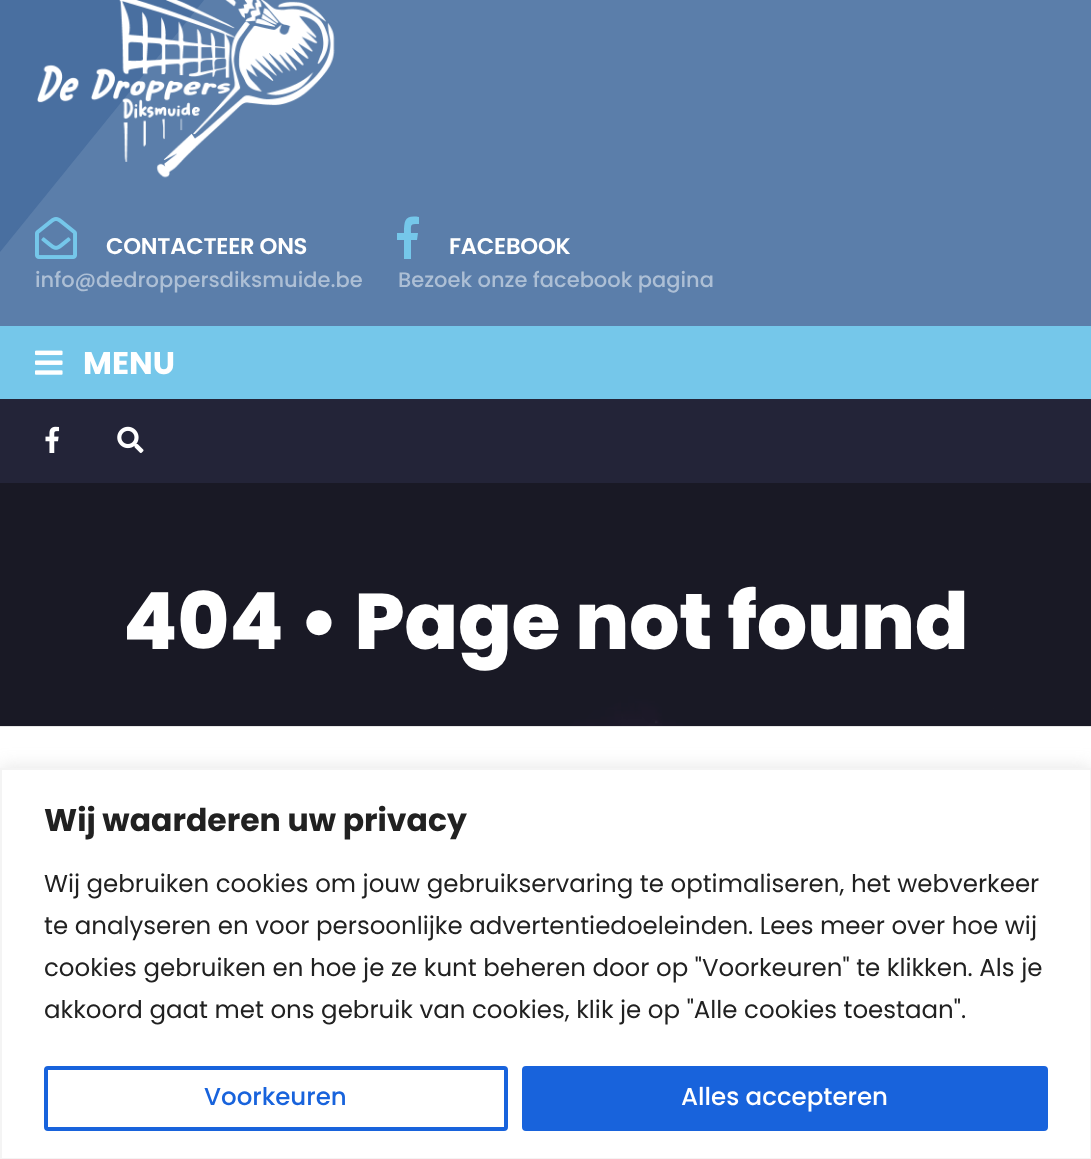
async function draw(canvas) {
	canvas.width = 1091;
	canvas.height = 1159;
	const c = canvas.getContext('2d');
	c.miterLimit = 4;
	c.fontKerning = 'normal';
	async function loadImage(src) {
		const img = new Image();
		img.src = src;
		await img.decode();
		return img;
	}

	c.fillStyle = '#fff';
	c.fillRect(0, 0, 1091, 1159);
	c.fillStyle = '#496fa0';
	c.fillRect(0, 0, 204, 252);
	c.save();
	c.beginPath();
	c.rect(0, 0, 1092, 326);
	c.clip();
	c.fillStyle = '#5b7eaa';
	c.beginPath();
	c.moveTo(907, -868);
	c.lineTo(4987, 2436);
	c.lineTo(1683, 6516);
	c.lineTo(-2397, 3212);
	c.closePath();
	c.fill();
	c.restore();
	c.drawImage(await loadImage('img1.png'), 37, 0, 298, 178);
	c.drawImage(await loadImage('img2.png'), 35, 217, 42, 42);
	c.letterSpacing = '-0.25px';
	c.font = '600 22.75px Poppins';
	c.fillStyle = '#fff';
	c.fillText('CONTACTEER ONS', 106, 254);
	c.letterSpacing = '0px';
	c.font = '500 21px Poppins';
	c.fillStyle = '#adbfd5';
	c.fillText('info@dedroppersdiksmuide.be', 35, 287);
	c.fillStyle = '#75c7ea';
	c.beginPath();
	c.moveTo(404, 259);
	c.lineTo(404, 240);
	c.lineTo(397, 240);
	c.lineTo(397, 233);
	c.lineTo(404, 233);
	c.bezierCurveTo(404, 220, 405, 215, 419, 217);
	c.lineTo(419, 224);
	c.bezierCurveTo(410, 224, 411, 224, 411, 233);
	c.lineTo(418, 233);
	c.lineTo(417, 240);
	c.lineTo(411, 240);
	c.lineTo(411, 259);
	c.closePath();
	c.fill();
	c.letterSpacing = '-0.25px';
	c.font = '600 22.75px Poppins';
	c.fillStyle = '#fff';
	c.fillText('FACEBOOK', 449, 254);
	c.letterSpacing = '0px';
	c.font = '500 21px Poppins';
	c.fillStyle = '#adbfd5';
	c.fillText('Bezoek onze facebook pagina', 398, 287);
	c.fillStyle = '#75c7ea';
	c.fillRect(0, 326, 1091, 73);
	c.drawImage(await loadImage('img3.png'), 35, 350, 28, 25);
	c.font = 'bold 31.5px Poppins';
	c.fillStyle = '#fff';
	c.fillText('MENU', 83, 374);
	c.fillStyle = '#2a2a3f';
	c.fillRect(0, 399, 1091, 327);
	c.drawImage(await loadImage('img6.png'), 0, 399, 1091, 328);
	c.fillStyle = '#3b3f684d';
	c.fillRect(0, 399, 1091, 84);
	c.drawImage(await loadImage('img4.png'), 45, 426, 15, 27);
	c.drawImage(await loadImage('img5.png'), 117, 426, 27, 27);
	c.font = '800 78.75px Poppins';
	c.fillStyle = '#fff';
	c.fillText('404 • Page not found', 123, 649);
	c.fillStyle = '#acabab4d';
	c.filter = 'blur(9px)';
	c.beginPath();
	c.rect(0, 767, 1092, 392);
	c.fill();
	c.filter = 'none';
	c.fillStyle = '#fff';
	c.beginPath();
	c.rect(1, 769, 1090, 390);
	c.fill();
	c.strokeStyle = '#f4f4f4';
	c.lineWidth = 2;
	c.stroke();
	c.font = 'bold 31.5px Poppins';
	c.fillStyle = '#212121';
	c.fillText('Wij waarderen uw privacy', 44, 831);
	c.font = '24.5px Poppins';
	for (const [text, x, y] of [
		['Wij gebruiken cookies om jouw gebruikservaring te optimaliseren, het webverkeer', 44, 892],
		['te analyseren en voor persoonlijke advertentiedoeleinden. Lees meer over hoe wij', 44, 934],
		['cookies gebruiken en hoe je ze kunt beheren door op "Voorkeuren" te klikken. Als je', 44, 976],
		['akkoord gaat met ons gebruik van cookies, klik je op "Alle cookies toestaan".', 44, 1018],
	]) {
		c.fillText(text, x, y);
	}
	c.beginPath();
	c.roundRect(46, 1068, 460, 61, 2);
	c.strokeStyle = '#1863dc';
	c.lineWidth = 4;
	c.stroke();
	c.font = '500 24.5px Poppins';
	c.fillStyle = '#1863dc';
	c.fillText('Voorkeuren', 204, 1105);
	c.beginPath();
	c.roundRect(524, 1068, 522, 61, 2);
	c.fill();
	c.stroke();
	c.fillStyle = '#fff';
	c.fillText('Alles accepteren', 681, 1105);
}

draw(document.querySelector('canvas'));
